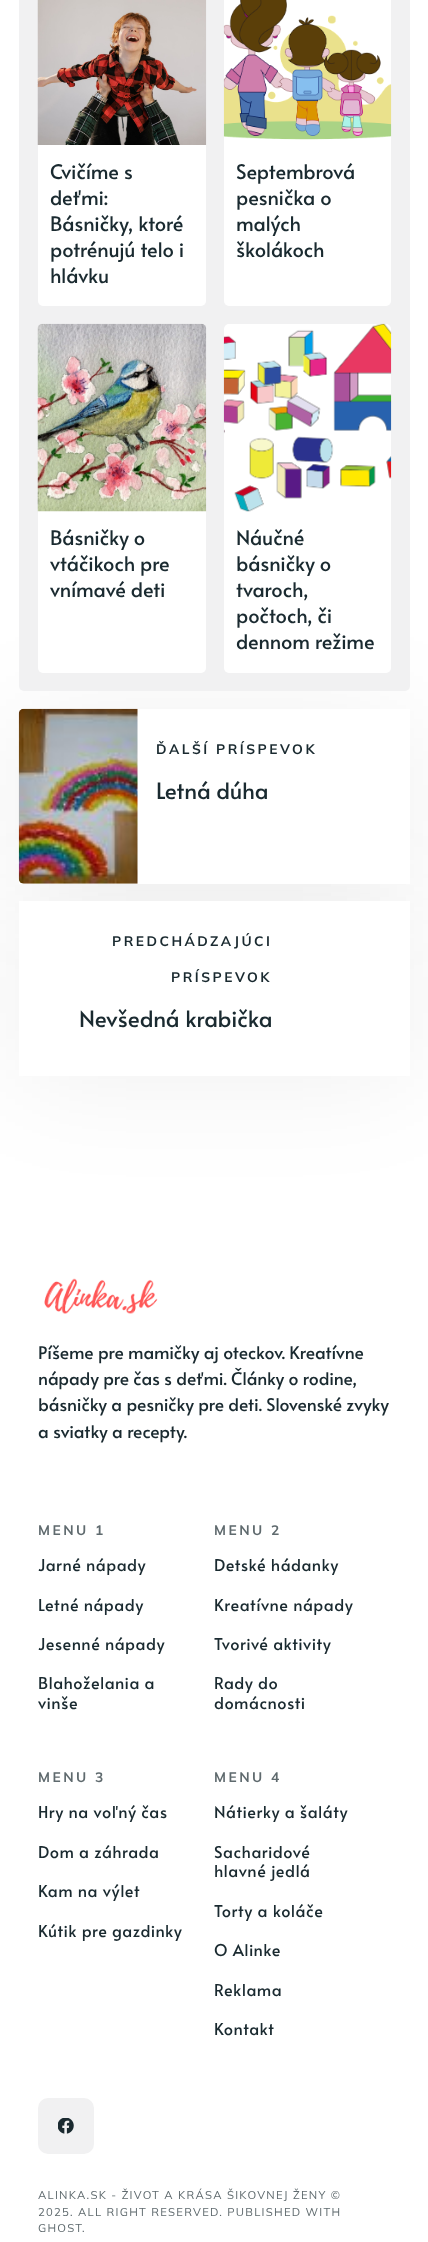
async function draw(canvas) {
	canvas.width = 428;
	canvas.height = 2242;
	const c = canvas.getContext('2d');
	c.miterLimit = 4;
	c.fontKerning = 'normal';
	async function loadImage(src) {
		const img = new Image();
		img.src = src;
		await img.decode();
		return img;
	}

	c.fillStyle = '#fff';
	c.fillRect(0, 0, 428, 2242);
	c.fillStyle = '#00000012';
	c.filter = 'blur(59.5px)';
	c.beginPath();
	c.rect(19, 728, 391, 150);
	c.fill();
	c.filter = 'none';
	c.fillStyle = '#f1f1f2';
	c.beginPath();
	c.roundRect(19, -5, 391, 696, 5);
	c.fill();
	c.fillStyle = '#fff';
	c.beginPath();
	c.roundRect(38, -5, 168, 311, 5);
	c.fill();
	c.drawImage(await loadImage('img1.png'), 37, 0, 170, 145);
	c.font = '20px Alata';
	c.fillStyle = '#1a2a30';
	for (const [text, x, y] of [
		['Cvičíme s', 50, 179],
		['deťmi:', 50, 205],
		['Básničky, ktoré', 50, 231],
		['potrénujú telo i', 50, 257],
		['hlávku', 50, 283],
	]) {
		c.fillText(text, x, y);
	}
	c.fillStyle = '#fff';
	c.beginPath();
	c.roundRect(224, -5, 167, 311, 5);
	c.fill();
	c.drawImage(await loadImage('img2.png'), 223, 0, 169, 140);
	c.fillStyle = '#1a2a30';
	for (const [text, x, y] of [
		['Septembrová', 236, 179],
		['pesnička o', 236, 205],
		['malých', 236, 231],
		['školákoch', 236, 257],
	]) {
		c.fillText(text, x, y);
	}
	c.fillStyle = '#fff';
	c.beginPath();
	c.roundRect(38, 324, 168, 349, 5);
	c.fill();
	c.drawImage(await loadImage('img3.png'), 37, 323, 170, 189);
	c.fillStyle = '#1a2a30';
	for (const [text, x, y] of [
		['Básničky o', 50, 545],
		['vtáčikoch pre', 50, 571],
		['vnímavé deti', 50, 597],
	]) {
		c.fillText(text, x, y);
	}
	c.fillStyle = '#fff';
	c.beginPath();
	c.roundRect(224, 324, 167, 349, 5);
	c.fill();
	c.drawImage(await loadImage('img4.png'), 223, 323, 169, 189);
	c.fillStyle = '#1a2a30';
	for (const [text, x, y] of [
		['Náučné', 236, 545],
		['básničky o', 236, 571],
		['tvaroch,', 236, 597],
		['počtoch, či', 236, 623],
		['dennom režime', 236, 649],
	]) {
		c.fillText(text, x, y);
	}
	c.fillStyle = '#00000012';
	c.filter = 'blur(59.5px)';
	c.beginPath();
	c.rect(19, 920, 391, 150);
	c.fill();
	c.filter = 'none';
	c.fillStyle = '#fff';
	c.fillRect(19, 709, 391, 175);
	c.drawImage(await loadImage('img5.png'), 18, 708, 120, 176);
	c.letterSpacing = '2.5px';
	c.font = 'bold 13.75px Mulish';
	c.fillStyle = '#1a2a30';
	c.fillText('ĎALŠÍ PRÍSPEVOK', 156, 754);
	c.letterSpacing = '0px';
	c.font = '22.5px Alata';
	c.fillText('Letná dúha', 156, 799);
	c.fillStyle = '#fff';
	c.fillRect(19, 901, 391, 175);
	c.letterSpacing = '2.5px';
	c.font = 'bold 13.75px Mulish';
	c.fillStyle = '#1a2a30';
	c.fillText('PREDCHÁDZAJÚCI', 112, 946);
	c.fillText('PRÍSPEVOK', 171, 982);
	c.letterSpacing = '0px';
	c.font = '22.5px Alata';
	c.fillText('Nevšedná krabička', 79, 1027);
	c.drawImage(await loadImage('img6.png'), 44, 1278, 114, 36);
	c.font = '17.5px Alata';
	for (const [text, x, y] of [
		['Píšeme pre mamičky aj oteckov. Kreatívne', 38, 1359],
		['nápady pre čas s deťmi. Články o rodine,', 38, 1385],
		['básničky a pesničky pre deti. Slovenské zvyky', 38, 1411],
		['a sviatky a recepty.', 38, 1438],
	]) {
		c.fillText(text, x, y);
	}
	c.letterSpacing = '2.5px';
	c.font = 'bold 13.75px Mulish';
	c.fillStyle = '#5f6a6e';
	c.fillText('MENU 1', 38, 1535);
	c.letterSpacing = '0.6px';
	c.font = '16.25px Alata';
	c.fillStyle = '#1a2a30';
	for (const [text, x, y] of [
		['Jarné nápady', 38, 1571],
		['Letné nápady', 38, 1611],
		['Jesenné nápady', 38, 1650],
		['Blahoželania a', 38, 1689],
		['vinše', 38, 1709],
	]) {
		c.fillText(text, x, y);
	}
	c.letterSpacing = '2.5px';
	c.font = 'bold 13.75px Mulish';
	c.fillStyle = '#5f6a6e';
	c.fillText('MENU 2', 214, 1535);
	c.letterSpacing = '0.6px';
	c.font = '16.25px Alata';
	c.fillStyle = '#1a2a30';
	for (const [text, x, y] of [
		['Detské hádanky', 214, 1571],
		['Kreatívne nápady', 214, 1611],
		['Tvorivé aktivity', 214, 1650],
		['Rady do', 214, 1689],
		['domácnosti', 214, 1709],
	]) {
		c.fillText(text, x, y);
	}
	c.letterSpacing = '2.5px';
	c.font = 'bold 13.75px Mulish';
	c.fillStyle = '#5f6a6e';
	c.fillText('MENU 3', 38, 1782);
	c.letterSpacing = '0.6px';
	c.font = '16.25px Alata';
	c.fillStyle = '#1a2a30';
	for (const [text, x, y] of [
		['Hry na voľný čas', 38, 1818],
		['Dom a záhrada', 38, 1858],
		['Kam na výlet', 38, 1897],
		['Kútik pre gazdinky', 38, 1937],
	]) {
		c.fillText(text, x, y);
	}
	c.letterSpacing = '2.5px';
	c.font = 'bold 13.75px Mulish';
	c.fillStyle = '#5f6a6e';
	c.fillText('MENU 4', 214, 1782);
	c.letterSpacing = '0.6px';
	c.font = '16.25px Alata';
	c.fillStyle = '#1a2a30';
	for (const [text, x, y] of [
		['Nátierky a šaláty', 214, 1818],
		['Sacharidové', 214, 1858],
		['hlavné jedlá', 214, 1877],
		['Torty a koláče', 214, 1917],
		['O Alinke', 214, 1956],
		['Reklama', 214, 1996],
		['Kontakt', 214, 2035],
	]) {
		c.fillText(text, x, y);
	}
	c.fillStyle = '#f1f1f2';
	c.beginPath();
	c.roundRect(38, 2098, 56, 56, 10);
	c.fill();
	c.drawImage(await loadImage('img7.png'), 58, 2118, 16, 16);
	c.letterSpacing = '1.25px';
	c.font = '11.25px Mulish';
	c.fillStyle = '#5f6a6e';
	for (const [text, x, y] of [
		['ALINKA.SK - ŽIVOT A KRÁSA ŠIKOVNEJ ŽENY ©', 38, 2199],
		['2025. ALL RIGHT RESERVED. PUBLISHED WITH', 38, 2216],
		['GHOST', 38, 2232],
		['.', 82, 2232],
	]) {
		c.fillText(text, x, y);
	}
}

draw(document.querySelector('canvas'));
